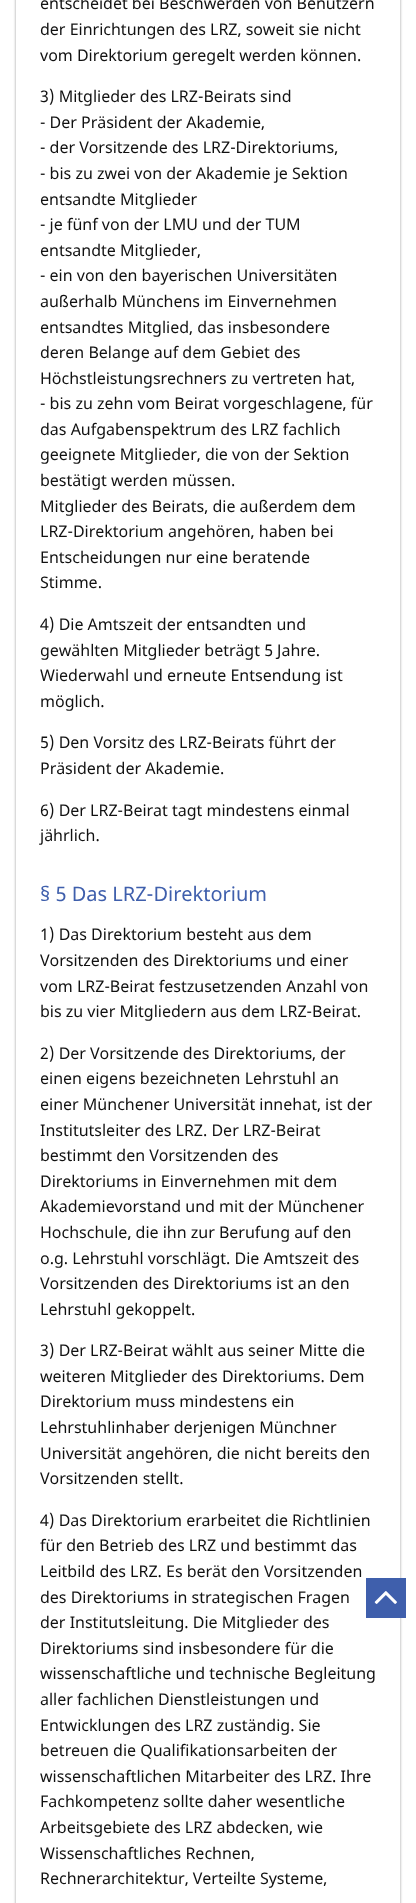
async function draw(canvas) {
	canvas.width = 416;
	canvas.height = 1903;
	const c = canvas.getContext('2d');
	c.miterLimit = 4;
	c.fontKerning = 'normal';
	async function loadImage(src) {
		const img = new Image();
		img.src = src;
		await img.decode();
		return img;
	}

	c.fillStyle = '#fff';
	c.fillRect(0, 0, 416, 1903);
	c.save();
	c.beginPath();
	c.moveTo(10, 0);
	c.lineTo(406, 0);
	c.lineTo(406, 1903);
	c.lineTo(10, 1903);
	c.closePath();
	c.moveTo(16, -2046);
	c.lineTo(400, -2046);
	c.lineTo(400, 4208);
	c.lineTo(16, 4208);
	c.closePath();
	c.clip('evenodd');
	c.fillStyle = '#999';
	c.filter = 'blur(1.5px)';
	c.beginPath();
	c.rect(16, -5, 384, 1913);
	c.fill();
	c.filter = 'none';
	c.restore();
	c.font = '16px Noto Sans';
	c.fillStyle = '#111';
	for (const [text, x, y] of [
		['entscheidet bei Beschwerden von Benutzern', 40, 9],
		['der Einrichtungen des LRZ, soweit sie nicht', 40, 35],
		['vom Direktorium geregelt werden können.', 40, 61],
		['3) Mitglieder des LRZ-Beirats sind', 40, 102],
		['- Der Präsident der Akademie,', 40, 128],
		['- der Vorsitzende des LRZ-Direktoriums,', 40, 153],
		['- bis zu zwei von der Akademie je Sektion', 40, 179],
		['entsandte Mitglieder', 40, 205],
		['- je fünf von der LMU und der TUM', 40, 230],
		['entsandte Mitglieder,', 40, 256],
		['- ein von den bayerischen Universitäten', 40, 281],
		['außerhalb Münchens im Einvernehmen', 40, 307],
		['entsandtes Mitglied, das insbesondere', 40, 333],
		['deren Belange auf dem Gebiet des', 40, 358],
		['Höchstleistungsrechners zu vertreten hat,', 40, 384],
		['- bis zu zehn vom Beirat vorgeschlagene, für', 40, 409],
		['das Aufgabenspektrum des LRZ fachlich', 40, 435],
		['geeignete Mitglieder, die von der Sektion', 40, 460],
		['bestätigt werden müssen.', 40, 486],
		['Mitglieder des Beirats, die außerdem dem', 40, 512],
		['LRZ-Direktorium angehören, haben bei', 40, 537],
		['Entscheidungen nur eine beratende', 40, 563],
		['Stimme.', 40, 588],
		['4) Die Amtszeit der entsandten und', 40, 630],
		['gewählten Mitglieder beträgt 5 Jahre.', 40, 656],
		['Wiederwahl und erneute Entsendung ist', 40, 681],
		['möglich.', 40, 707],
		['5) Den Vorsitz des LRZ-Beirats führt der', 40, 748],
		['Präsident der Akademie.', 40, 774],
		['6) Der LRZ-Beirat tagt mindestens einmal', 40, 816],
		['jährlich.', 40, 841],
	]) {
		c.fillText(text, x, y);
	}
	c.font = '20px Noto Sans';
	c.fillStyle = '#3f5fac';
	c.fillText('§ 5 Das LRZ-Direktorium', 40, 901);
	c.font = '16px Noto Sans';
	c.fillStyle = '#111';
	for (const [text, x, y] of [
		['1) Das Direktorium besteht aus dem', 40, 940],
		['Vorsitzenden des Direktoriums und einer', 40, 966],
		['vom LRZ-Beirat festzusetzenden Anzahl von', 40, 992],
		['bis zu vier Mitgliedern aus dem LRZ-Beirat.', 40, 1017],
		['2) Der Vorsitzende des Direktoriums, der', 40, 1059],
		['einen eigens bezeichneten Lehrstuhl an', 40, 1084],
		['einer Münchener Universität innehat, ist der', 40, 1110],
		['Institutsleiter des LRZ. Der LRZ-Beirat', 40, 1136],
		['bestimmt den Vorsitzenden des', 40, 1161],
		['Direktoriums in Einvernehmen mit dem', 40, 1187],
		['Akademievorstand und mit der Münchener', 40, 1212],
		['Hochschule, die ihn zur Berufung auf den', 40, 1238],
		['o.g. Lehrstuhl vorschlägt. Die Amtszeit des', 40, 1264],
		['Vorsitzenden des Direktoriums ist an den', 40, 1289],
		['Lehrstuhl gekoppelt.', 40, 1315],
		['3) Der LRZ-Beirat wählt aus seiner Mitte die', 40, 1356],
		['weiteren Mitglieder des Direktoriums. Dem', 40, 1382],
		['Direktorium muss mindestens ein', 40, 1407],
		['Lehrstuhlinhaber derjenigen Münchner', 40, 1433],
		['Universität angehören, die nicht bereits den', 40, 1459],
		['Vorsitzenden stellt.', 40, 1484],
		['4) Das Direktorium erarbeitet die Richtlinien', 40, 1526],
		['für den Betrieb des LRZ und bestimmt das', 40, 1551],
		['Leitbild des LRZ. Es berät den Vorsitzenden', 40, 1577],
		['des Direktoriums in strategischen Fragen', 40, 1603],
		['der Institutsleitung. Die Mitglieder des', 40, 1628],
		['Direktoriums sind insbesondere für die', 40, 1654],
		['wissenschaftliche und technische Begleitung', 40, 1679],
		['aller fachlichen Dienstleistungen und', 40, 1705],
		['Entwicklungen des LRZ zuständig. Sie', 40, 1731],
		['betreuen die Qualifikationsarbeiten der', 40, 1756],
		['wissenschaftlichen Mitarbeiter des LRZ. Ihre', 40, 1782],
		['Fachkompetenz sollte daher wesentliche', 40, 1807],
		['Arbeitsgebiete des LRZ abdecken, wie', 40, 1833],
		['Wissenschaftliches Rechnen,', 40, 1859],
		['Rechnerarchitektur, Verteilte Systeme,', 40, 1884],
	]) {
		c.fillText(text, x, y);
	}
	c.fillStyle = '#3f5fac';
	c.fillRect(366, 1578, 40, 40);
	c.drawImage(await loadImage('img1.png'), 374, 1591, 23, 13);
}

draw(document.querySelector('canvas'));
